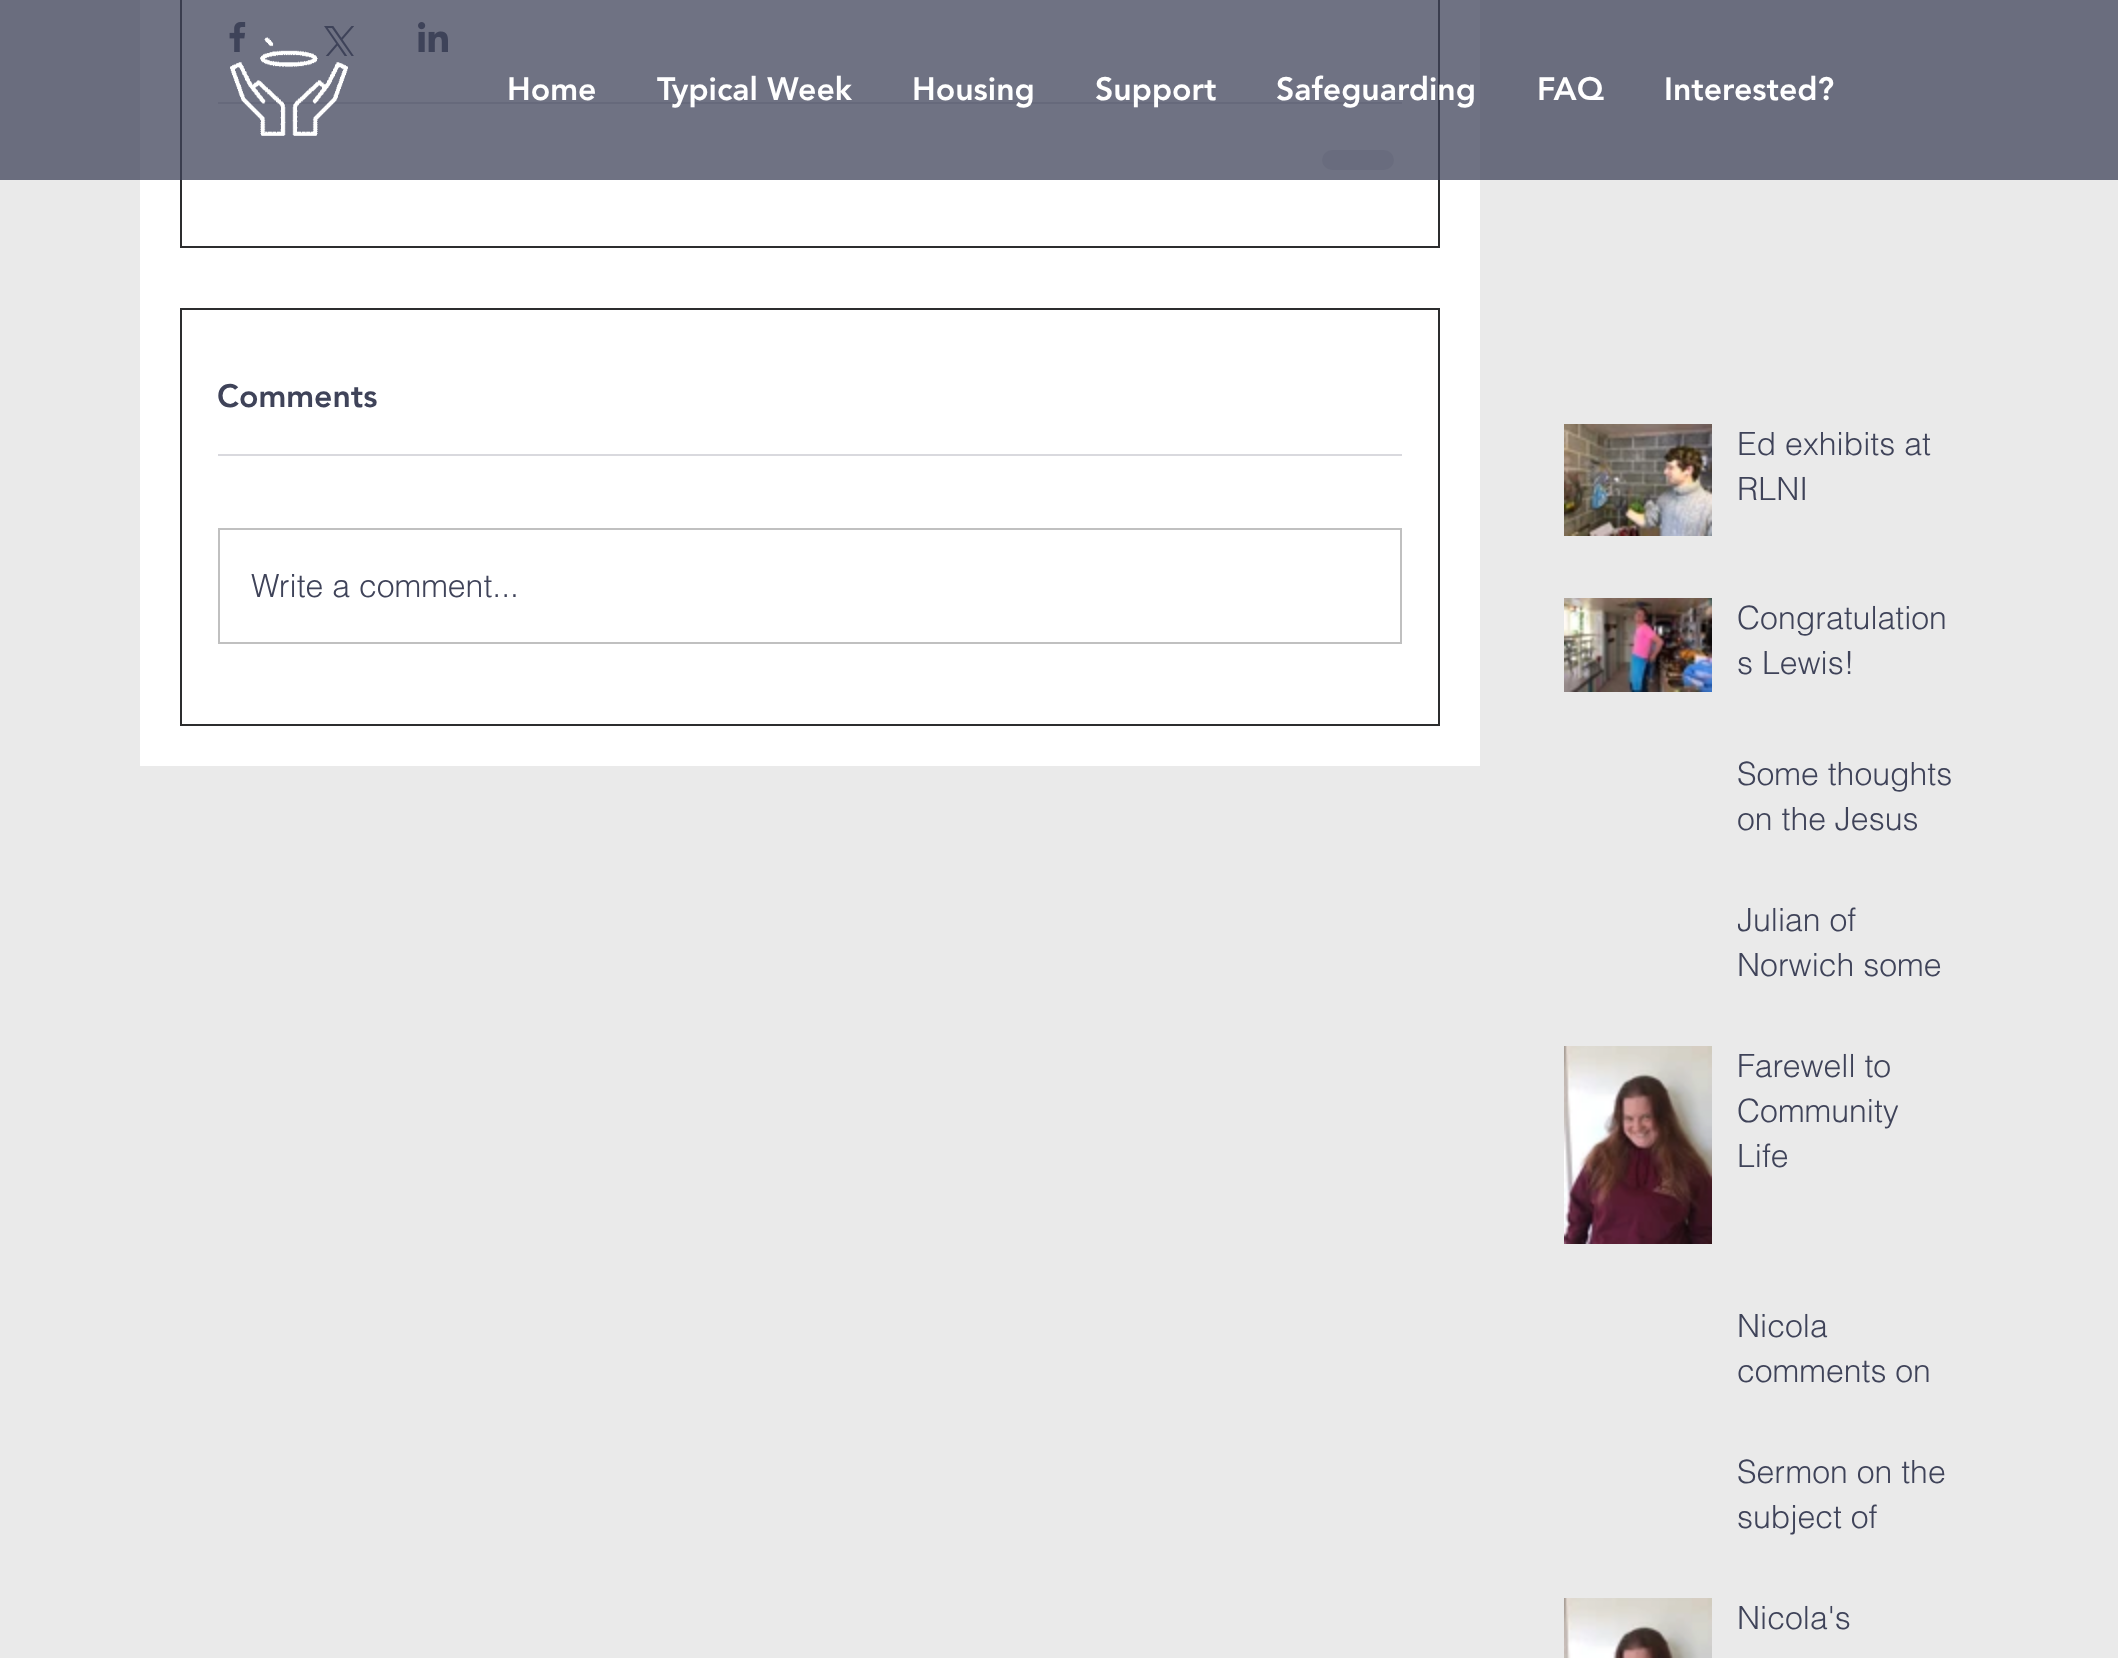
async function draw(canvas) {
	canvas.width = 2118;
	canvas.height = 1658;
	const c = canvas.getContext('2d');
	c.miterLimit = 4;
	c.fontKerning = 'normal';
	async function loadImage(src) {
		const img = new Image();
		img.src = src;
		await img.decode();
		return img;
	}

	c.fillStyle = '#eaeaea';
	c.fillRect(0, 0, 2118, 1658);
	c.fillStyle = '#fff';
	c.fillRect(140, 0, 1340, 766);
	c.strokeStyle = '#2c2d2e';
	c.lineWidth = 2;
	c.strokeRect(181, -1, 1258, 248);
	c.drawImage(await loadImage('img2.png'), 229, 22, 17, 30);
	c.drawImage(await loadImage('img3.png'), 324, 26, 30, 30);
	c.drawImage(await loadImage('img4.png'), 418, 22, 30, 30);
	c.fillStyle = '#d9d9de';
	c.fillRect(218, 102, 1184, 2);
	c.fillStyle = '#e8e8eb';
	c.beginPath();
	c.roundRect(1322, 150, 72, 20, 10);
	c.fill();
	c.fillStyle = '#3f4359bf';
	c.fillRect(0, 0, 2118, 180);
	c.drawImage(await loadImage('img1.png'), 230, 37, 118, 99);
	c.font = '900 32px "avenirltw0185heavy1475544"';
	c.fillStyle = '#fff';
	for (const [text, x, y] of [
		['Home', 507, 100],
		['Typical Week', 657, 100],
		['Housing', 912, 100],
		['Support', 1095, 100],
		['Safeguarding', 1276, 100],
		['FAQ', 1537, 100],
		['Interested?', 1664, 100],
	]) {
		c.fillText(text, x, y);
	}
	c.strokeRect(181, 309, 1258, 416);
	c.fillStyle = '#3f4359';
	c.fillText('Comments', 217, 407);
	c.fillStyle = '#d9d9de';
	c.fillRect(218, 454, 1184, 2);
	c.strokeStyle = '#c0c0c0';
	c.strokeRect(219, 529, 1182, 114);
	c.font = '300 32px helvetica';
	c.fillStyle = '#3f4359';
	c.fillText('Write a comment...', 251, 597);
	c.drawImage(await loadImage('img5.png'), 1564, 424, 148, 112);
	c.fillText('Ed exhibits at', 1737, 455);
	c.fillText('RLNI', 1737, 500);
	c.drawImage(await loadImage('img6.png'), 1564, 598, 148, 94);
	for (const [text, x, y] of [
		['Congratulation', 1737, 629],
		['s Lewis!', 1737, 674],
		['Some thoughts', 1737, 785],
		['on the Jesus', 1737, 830],
	]) {
		c.fillText(text, x, y);
	}
	c.save();
	c.beginPath();
	c.rect(1738, 898, 216, 112);
	c.clip();
	c.fillText('Julian of', 1737, 931);
	c.restore();
	c.fillText('Norwich some', 1737, 976);
	c.drawImage(await loadImage('img7.png'), 1564, 1046, 148, 198);
	for (const [text, x, y] of [
		['Farewell to', 1737, 1077],
		['Community', 1737, 1122],
		['Life', 1737, 1167],
		['Nicola', 1737, 1337],
		['comments on', 1737, 1382],
		['Sermon on the', 1737, 1483],
		['subject of', 1737, 1528],
	]) {
		c.fillText(text, x, y);
	}
	c.drawImage(await loadImage('img8.png'), 1564, 1598, 148, 60);
	c.fillText('Nicola\'s', 1737, 1629);
}

draw(document.querySelector('canvas'));
